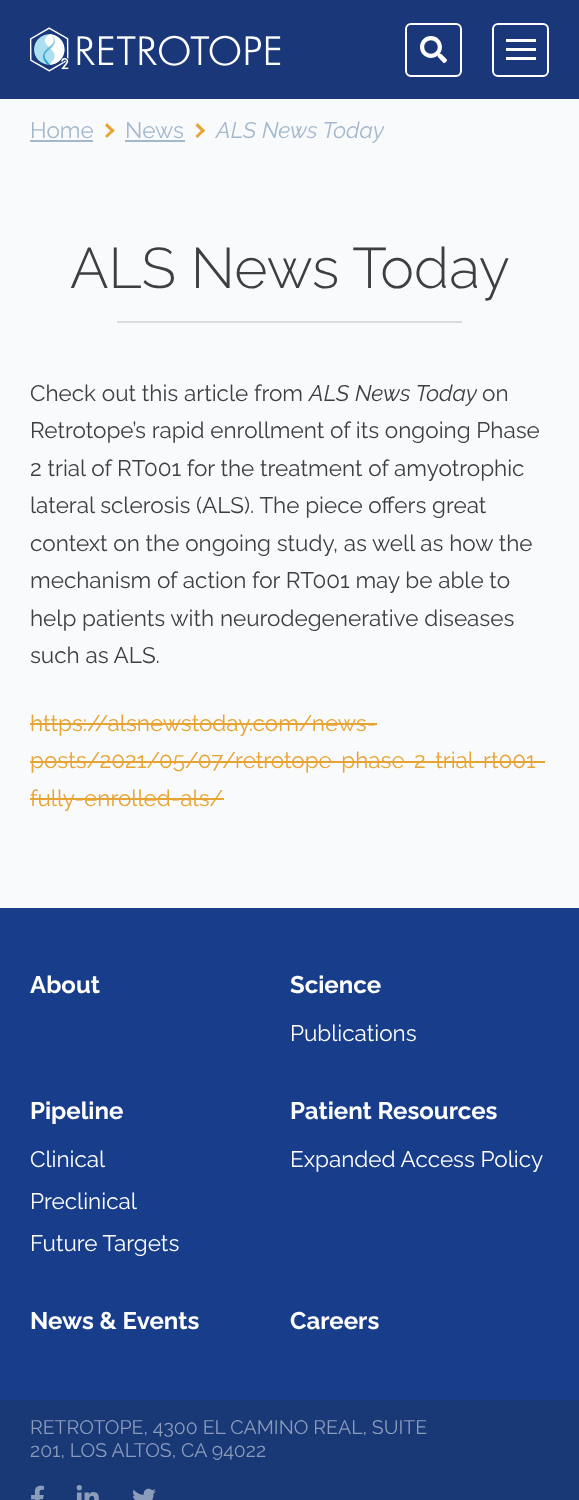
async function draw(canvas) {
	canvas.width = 579;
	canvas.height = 1500;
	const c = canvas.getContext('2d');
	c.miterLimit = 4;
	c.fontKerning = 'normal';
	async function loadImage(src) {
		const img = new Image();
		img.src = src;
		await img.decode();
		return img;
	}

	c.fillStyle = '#f9fafc';
	c.fillRect(0, 0, 579, 1500);
	c.fillStyle = '#193779';
	c.fillRect(0, 0, 579, 99);
	c.drawImage(await loadImage('img1.png'), 30, 27, 251, 45);
	c.beginPath();
	c.roundRect(406, 24, 55, 52, 5);
	c.strokeStyle = '#fff';
	c.lineWidth = 2;
	c.stroke();
	c.drawImage(await loadImage('img2.png'), 420, 36, 27, 27);
	c.beginPath();
	c.roundRect(493, 24, 55, 52, 5);
	c.stroke();
	for (const [x, y, w, h, color] of [
		[506, 48, 30, 3, '#fff'],
		[506, 39, 30, 3, '#fff'],
		[506, 57, 30, 3, '#fff'],
	]) {
		c.fillStyle = color;
		c.fillRect(x, y, w, h);
	}
	c.font = '22.5px Raleway';
	c.fillStyle = '#a3b8cc';
	c.fillText('Home', 30, 138);
	c.fillRect(30, 140, 63, 2);
	c.fillStyle = '#e7a434';
	c.beginPath();
	c.moveTo(105, 125.5);
	c.lineTo(107, 123);
	c.lineTo(114.5, 130.5);
	c.lineTo(112.5, 133);
	c.closePath();
	c.fill();
	c.beginPath();
	c.moveTo(105, 136);
	c.lineTo(112.5, 128.5);
	c.lineTo(114.5, 130.5);
	c.lineTo(107, 138);
	c.closePath();
	c.fill();
	c.fillStyle = '#a3b8cc';
	c.fillText('News', 125, 138);
	c.fillRect(125, 140, 60, 2);
	c.fillStyle = '#e7a434';
	c.beginPath();
	c.moveTo(195.5, 125.5);
	c.lineTo(197.5, 123);
	c.lineTo(205, 130.5);
	c.lineTo(203, 133);
	c.closePath();
	c.fill();
	c.beginPath();
	c.moveTo(195.5, 136);
	c.lineTo(203, 128.5);
	c.lineTo(205, 130.5);
	c.lineTo(197.5, 138);
	c.closePath();
	c.fill();
	c.font = 'italic 22.5px Raleway';
	c.fillStyle = '#a3b8cc';
	c.fillText('ALS News Today', 216, 138);
	c.font = '300 57px Raleway';
	c.fillStyle = '#3d4041';
	c.fillText('ALS News Today', 70, 288);
	c.fillStyle = '#d6dce0';
	c.fillRect(117, 321, 345, 2);
	c.font = '22.5px Raleway';
	c.fillStyle = '#3d4041';
	c.fillText('Check out this article from', 30, 401);
	c.font = 'italic 22.5px Raleway';
	c.fillText('ALS News Today', 309, 401);
	c.font = '22.5px Raleway';
	for (const [text, x, y] of [
		['on', 482, 401],
		['Retrotope’s rapid enrollment of its ongoing Phase', 30, 438],
		['2 trial of RT001 for the treatment of amyotrophic', 30, 476],
		['lateral sclerosis (ALS). The piece offers great', 30, 513],
		['context on the ongoing study, as well as how the', 30, 551],
		['mechanism of action for RT001 may be able to', 30, 588],
		['help patients with neurodegenerative diseases', 30, 626],
		['such as ALS.', 30, 663],
	]) {
		c.fillText(text, x, y);
	}
	c.fillStyle = '#e7a434';
	c.fillText('https://alsnewstoday.com/news-', 30, 731);
	c.fillRect(30, 723, 347, 2);
	c.fillText('posts/2021/05/07/retrotope-phase-2-trial-rt001', 30, 768);
	c.fillRect(30, 761, 515, 2);
	c.fillText('fully-enrolled-als/', 30, 806);
	c.fillRect(30, 798, 194, 2);
	c.fillStyle = '#183e8b';
	c.fillRect(0, 908, 579, 492);
	c.font = 'bold 24px Raleway';
	c.fillStyle = '#fff';
	c.fillText('About', 30, 993);
	c.fillText('Science', 290, 993);
	c.font = '22.5px Raleway';
	c.fillText('Publications', 290, 1041);
	c.font = 'bold 24px Raleway';
	c.fillText('Pipeline', 30, 1119);
	c.font = '22.5px Raleway';
	for (const [text, x, y] of [
		['Clinical', 30, 1167],
		['Preclinical', 30, 1209],
		['Future Targets', 30, 1251],
	]) {
		c.fillText(text, x, y);
	}
	c.font = 'bold 24px Raleway';
	c.fillText('Patient Resources', 290, 1119);
	c.font = '22.5px Raleway';
	c.fillText('Expanded Access Policy', 290, 1167);
	c.font = 'bold 24px Raleway';
	c.fillText('News & Events', 30, 1329);
	c.fillText('Careers', 290, 1329);
	c.fillStyle = '#193876';
	c.fillRect(0, 1400, 579, 100);
	c.font = '19.5px Raleway';
	c.fillStyle = '#8c9cbb';
	c.fillText('RETROTOPE, 4300 EL CAMINO REAL, SUITE', 30, 1434);
	c.fillText('201, LOS ALTOS, CA 94022', 30, 1457);
	c.drawImage(await loadImage('img3.png'), 31, 1485, 13, 15);
	c.drawImage(await loadImage('img4.png'), 76, 1485, 23, 15);
	c.drawImage(await loadImage('img5.png'), 133, 1488, 23, 12);
}

draw(document.querySelector('canvas'));
